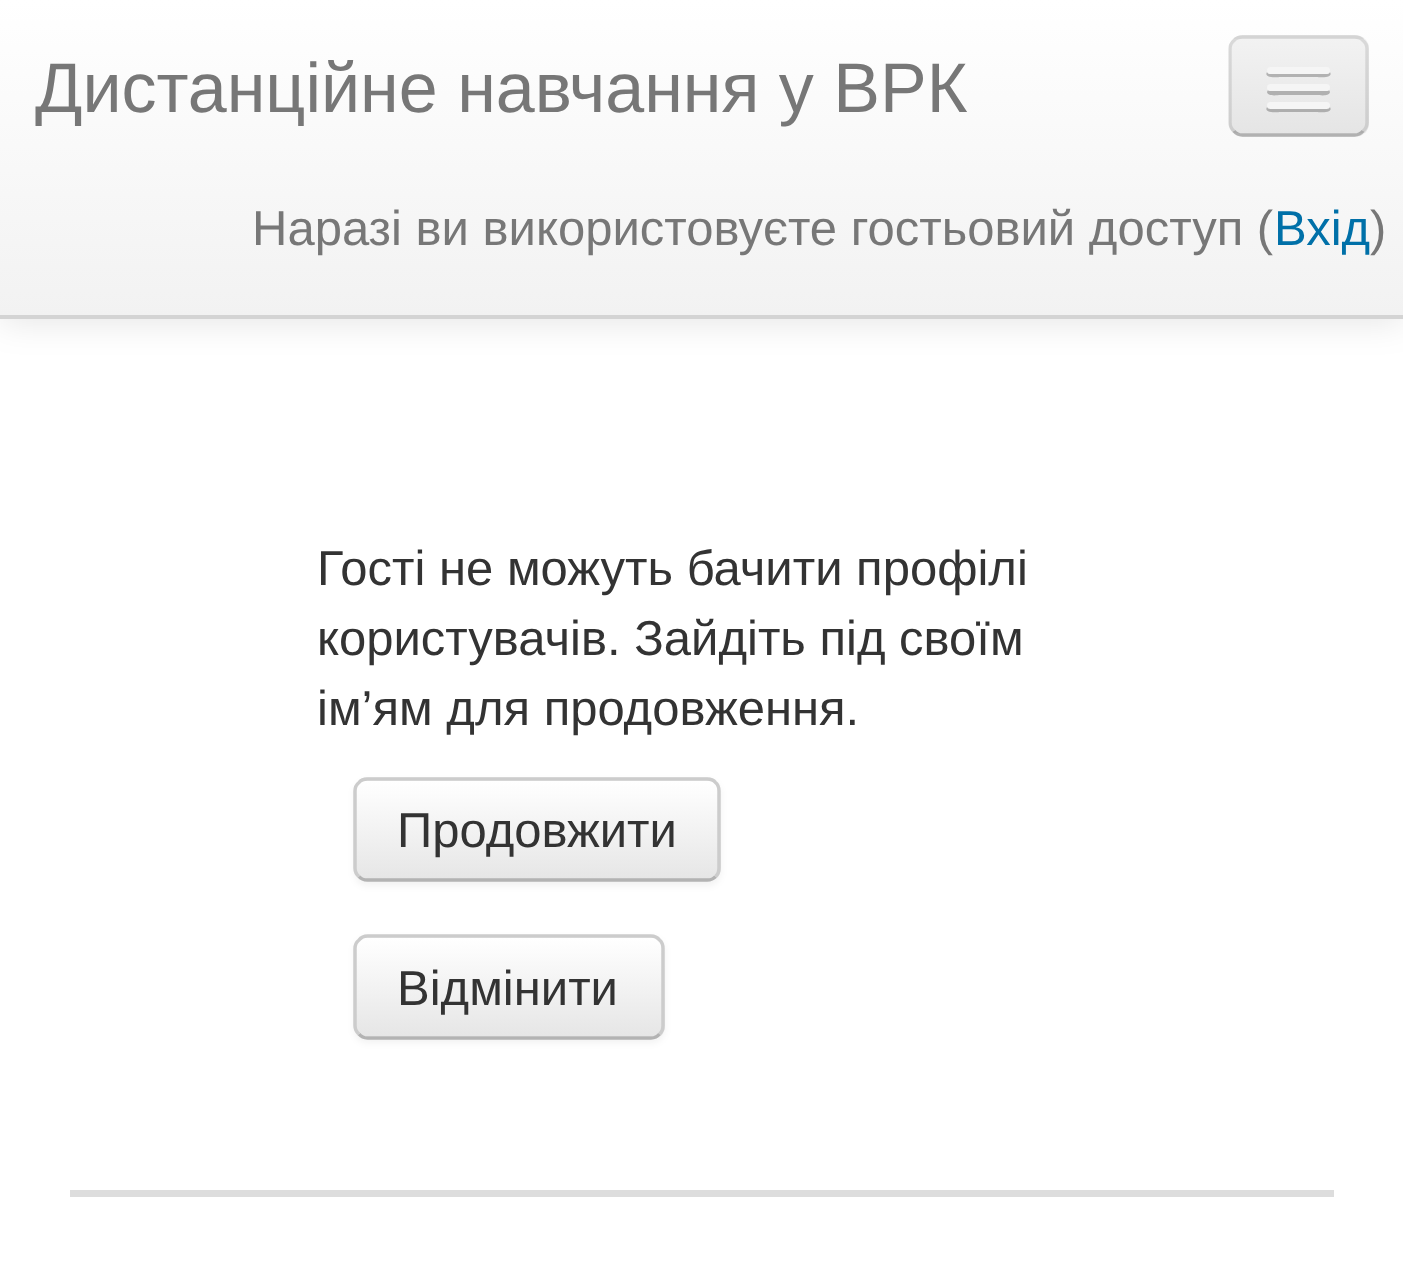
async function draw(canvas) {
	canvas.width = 1403;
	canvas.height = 1285;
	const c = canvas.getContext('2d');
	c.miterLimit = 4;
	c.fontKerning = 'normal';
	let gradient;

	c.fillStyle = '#fff';
	c.fillRect(0, 0, 1403, 1285);
	c.fillStyle = '#0000001a';
	c.filter = 'blur(17.5px)';
	c.beginPath();
	c.rect(0, 4, 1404, 318);
	c.fill();
	c.filter = 'none';
	gradient = c.createLinearGradient(702, 0, 702, 315);
	gradient.addColorStop(0, '#fff');
	gradient.addColorStop(1, '#f2f2f2');
	c.fillStyle = gradient;
	c.fillRect(0, 0, 1403, 315);
	c.fillStyle = '#d4d4d4';
	c.fillRect(0, 315, 1403, 4);
	c.font = '70px Liberation Sans';
	c.fillStyle = '#777';
	c.fillText('Дистанційне навчання у ВРК', 35, 112);
	c.fillStyle = '#ededed';
	c.beginPath();
	c.roundRect(1229, 35, 140, 102, 14);
	c.fill();
	c.save();
	c.beginPath();
	c.roundRect(1229, 35, 140, 102, 14);
	c.clip();
	gradient = c.createLinearGradient(1299, 38, 1299, 133);
	gradient.addColorStop(0, '#f2f2f2');
	gradient.addColorStop(1, '#e5e5e5');
	c.fillStyle = gradient;
	c.fillRect(1229, 39, 140, 94);
	c.restore();
	c.beginPath();
	c.moveTo(1363, 131);
	c.bezierCurveTo(1361, 133.5, 1357.5, 135, 1354.5, 135);
	c.lineTo(1242.5, 135);
	c.bezierCurveTo(1239.5, 135, 1236, 133.5, 1234, 131);
	c.strokeStyle = '#00000040';
	c.lineWidth = 3.5;
	c.stroke();
	c.beginPath();
	c.moveTo(1234, 131);
	c.bezierCurveTo(1231.5, 129, 1230, 125.5, 1230, 122.5);
	c.lineTo(1230, 49);
	c.bezierCurveTo(1230, 46, 1231.5, 42.5, 1234, 40.5);
	c.bezierCurveTo(1236, 38, 1239.5, 37, 1242.5, 37);
	c.lineTo(1354.5, 37);
	c.bezierCurveTo(1357.5, 37, 1361, 38, 1363, 40.5);
	c.bezierCurveTo(1365.5, 42.5, 1367, 46, 1367, 49);
	c.lineTo(1367, 122.5);
	c.bezierCurveTo(1367, 125.5, 1365.5, 129, 1363, 131);
	c.strokeStyle = '#0000001a';
	c.stroke();
	c.fillStyle = '#b2b2b2';
	c.beginPath();
	c.moveTo(1267, 72);
	c.bezierCurveTo(1263, 79, 1279, 77, 1280, 77);
	c.lineTo(1317, 77);
	c.bezierCurveTo(1318, 77, 1334, 79, 1330, 72);
	c.bezierCurveTo(1329, 73, 1328, 74, 1326, 74);
	c.lineTo(1270, 74);
	c.bezierCurveTo(1269, 74, 1268, 73, 1267, 72);
	c.closePath();
	c.fill();
	c.fillStyle = '#f5f5f5';
	c.beginPath();
	c.roundRect(1267, 67, 63, 7, 3.5);
	c.fill();
	c.fillStyle = '#b0b0b0';
	c.beginPath();
	c.moveTo(1268, 90);
	c.lineTo(1267, 92);
	c.bezierCurveTo(1268, 97, 1278, 95, 1280, 95);
	c.lineTo(1317, 95);
	c.bezierCurveTo(1319, 95, 1329, 97, 1330, 92);
	c.lineTo(1329, 90);
	c.lineTo(1327, 91);
	c.lineTo(1270, 91);
	c.closePath();
	c.fill();
	c.fillStyle = '#f5f5f5';
	c.beginPath();
	c.roundRect(1267, 84, 63, 7, 3.5);
	c.fill();
	c.fillStyle = '#aeaeae';
	c.beginPath();
	c.moveTo(1267, 107);
	c.bezierCurveTo(1263, 114, 1279, 112, 1280, 112);
	c.lineTo(1317, 112);
	c.bezierCurveTo(1318, 112, 1334, 114, 1330, 107);
	c.bezierCurveTo(1329, 108, 1328, 108, 1326, 108);
	c.lineTo(1270, 108);
	c.bezierCurveTo(1269, 108, 1268, 108, 1267, 107);
	c.closePath();
	c.fill();
	c.fillStyle = '#f5f5f5';
	c.beginPath();
	c.roundRect(1267, 102, 63, 7, 3.5);
	c.fill();
	c.font = '49px Liberation Sans';
	c.fillStyle = '#777';
	c.fillText('Наразі ви використовуєте гостьовий доступ (', 252, 245);
	c.fillStyle = '#0070a8';
	c.fillText('Вхід', 1274, 245);
	c.fillStyle = '#777';
	c.fillText(')', 1370, 245);
	c.fillStyle = '#333';
	for (const [text, x, y] of [
		['Гості не можуть бачити профілі', 317, 585],
		['користувачів. Зайдіть під своїм', 317, 655],
		['ім’ям для продовження.', 317, 725],
	]) {
		c.fillText(text, x, y);
	}
	c.fillStyle = '#0000000d';
	c.filter = 'blur(3.5px)';
	c.beginPath();
	c.roundRect(354, 781, 367, 105, 14);
	c.fill();
	c.filter = 'none';
	c.fillStyle = '#f5f5f5';
	c.beginPath();
	c.roundRect(354, 777, 367, 105, 14);
	c.fill();
	c.save();
	c.beginPath();
	c.roundRect(354, 777, 367, 105, 14);
	c.clip();
	gradient = c.createLinearGradient(537, 781, 537, 879);
	gradient.addColorStop(0, '#fff');
	gradient.addColorStop(1, '#e6e6e6');
	c.fillStyle = gradient;
	c.fillRect(354, 781, 367, 98);
	c.restore();
	c.beginPath();
	c.moveTo(715.5, 876.5);
	c.bezierCurveTo(713.5, 879, 710, 880, 707, 880);
	c.lineTo(367.5, 880);
	c.bezierCurveTo(364.5, 880, 361, 879, 359, 876.5);
	c.strokeStyle = '#b3b3b3';
	c.stroke();
	c.beginPath();
	c.moveTo(359, 876.5);
	c.bezierCurveTo(356.5, 874.5, 355, 871, 355, 868);
	c.lineTo(355, 791);
	c.bezierCurveTo(355, 788, 356.5, 784.5, 359, 782.5);
	c.bezierCurveTo(361, 780, 364.5, 779, 367.5, 779);
	c.lineTo(707, 779);
	c.bezierCurveTo(710, 779, 713.5, 780, 715.5, 782.5);
	c.bezierCurveTo(718, 784.5, 719, 788, 719, 791);
	c.lineTo(719, 868);
	c.bezierCurveTo(719, 871, 718, 874.5, 715.5, 876.5);
	c.strokeStyle = '#ccc';
	c.stroke();
	c.fillStyle = '#333';
	c.fillText('Продовжити', 397, 847);
	c.fillStyle = '#0000000d';
	c.filter = 'blur(3.5px)';
	c.beginPath();
	c.roundRect(354, 938, 311, 105, 14);
	c.fill();
	c.filter = 'none';
	c.fillStyle = '#f5f5f5';
	c.beginPath();
	c.roundRect(354, 935, 311, 105, 14);
	c.fill();
	c.save();
	c.beginPath();
	c.roundRect(354, 935, 311, 105, 14);
	c.clip();
	gradient = c.createLinearGradient(509, 938, 509, 1036);
	gradient.addColorStop(0, '#fff');
	gradient.addColorStop(1, '#e6e6e6');
	c.fillStyle = gradient;
	c.fillRect(354, 938, 311, 98);
	c.restore();
	c.beginPath();
	c.moveTo(659.5, 1034);
	c.bezierCurveTo(657.5, 1036.5, 654, 1038, 651, 1038);
	c.lineTo(367.5, 1038);
	c.bezierCurveTo(364.5, 1038, 361, 1036.5, 359, 1034);
	c.strokeStyle = '#b3b3b3';
	c.stroke();
	c.beginPath();
	c.moveTo(359, 1034);
	c.bezierCurveTo(356.5, 1032, 355, 1028.5, 355, 1025.5);
	c.lineTo(355, 948.5);
	c.bezierCurveTo(355, 945.5, 356.5, 942, 359, 940);
	c.bezierCurveTo(361, 937.5, 364.5, 936, 367.5, 936);
	c.lineTo(651, 936);
	c.bezierCurveTo(654, 936, 657.5, 937.5, 659.5, 940);
	c.bezierCurveTo(662, 942, 663, 945.5, 663, 948.5);
	c.lineTo(663, 1025.5);
	c.bezierCurveTo(663, 1028.5, 662, 1032, 659.5, 1034);
	c.strokeStyle = '#ccc';
	c.stroke();
	c.fillStyle = '#333';
	c.fillText('Відмінити', 397, 1005);
	c.fillStyle = '#ddd';
	c.fillRect(70, 1190, 1264, 7);
}

draw(document.querySelector('canvas'));
